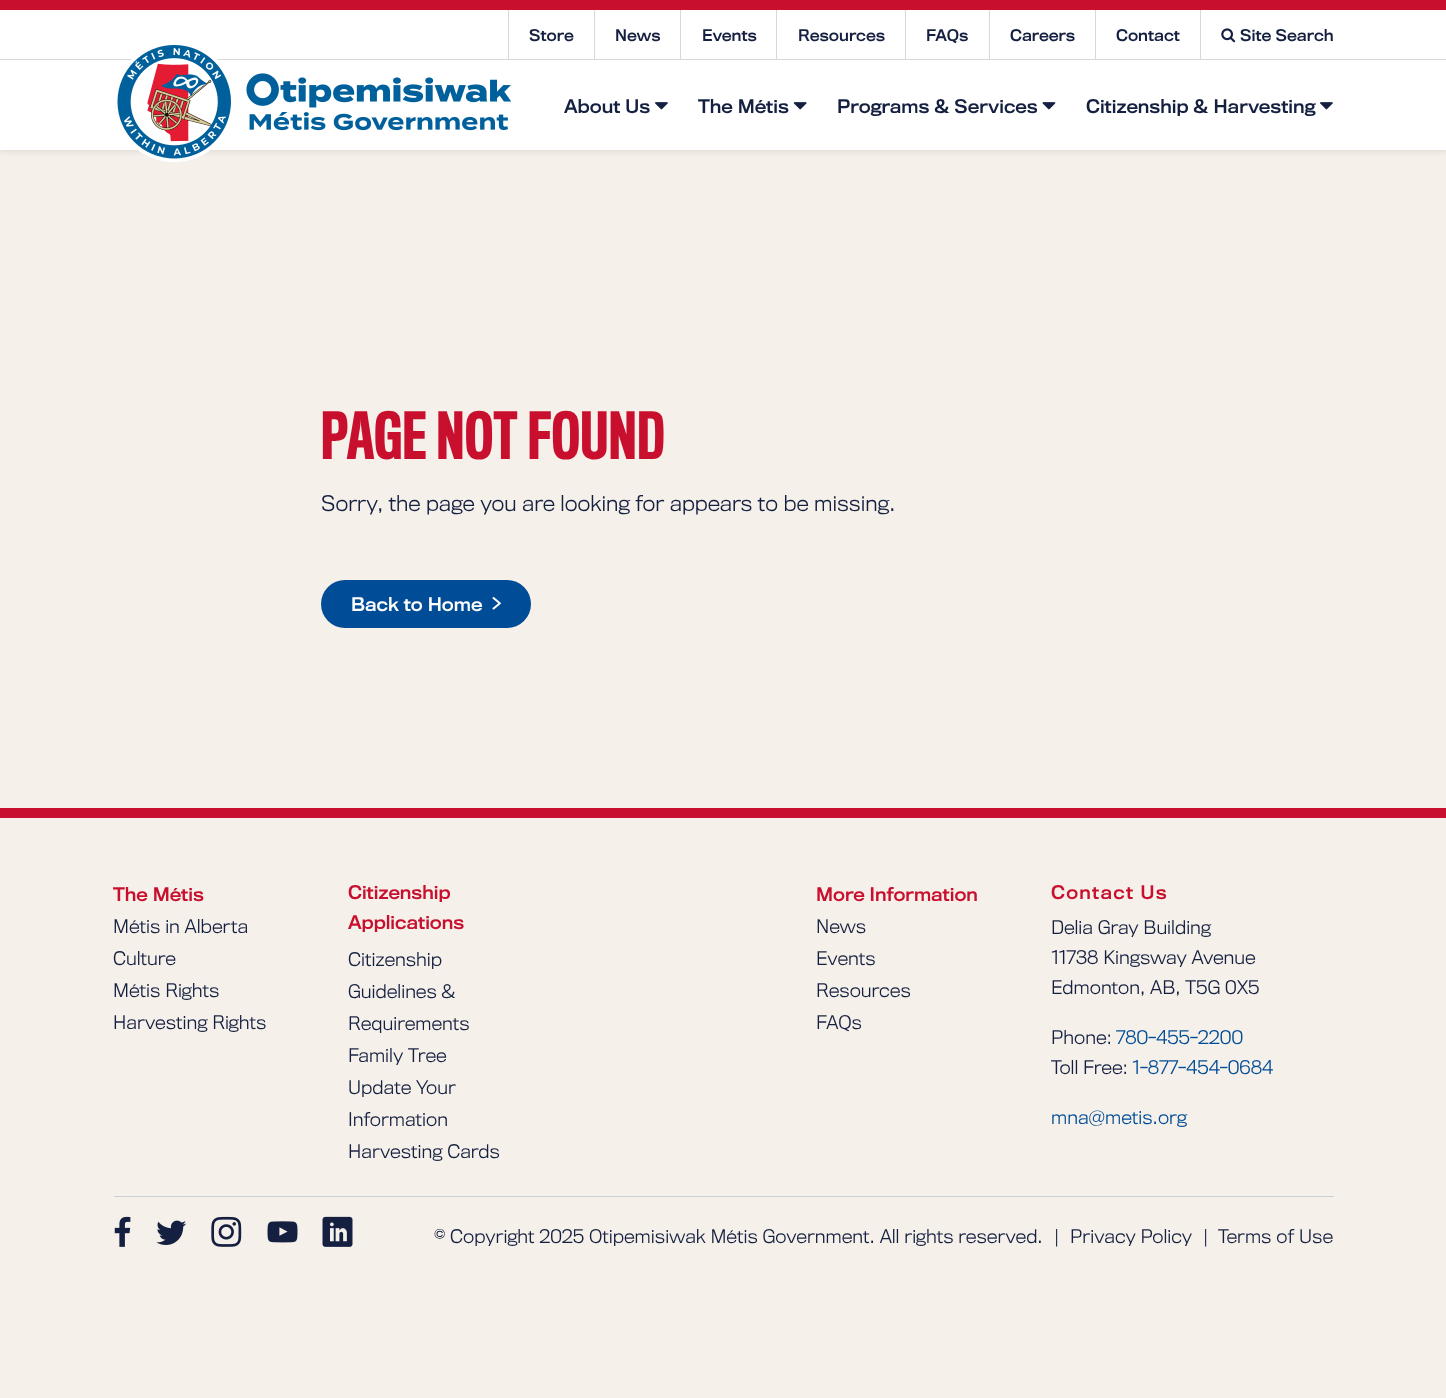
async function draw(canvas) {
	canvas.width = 1446;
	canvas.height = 1398;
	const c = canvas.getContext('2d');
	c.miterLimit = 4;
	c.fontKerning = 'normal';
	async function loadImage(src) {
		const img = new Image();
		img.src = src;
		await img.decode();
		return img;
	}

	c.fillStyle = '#f5f0e9';
	c.fillRect(0, 0, 1446, 1398);
	c.fillStyle = '#0000001a';
	c.filter = 'blur(3px)';
	c.beginPath();
	c.rect(-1, -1, 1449, 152);
	c.fill();
	c.filter = 'none';
	for (const [x, y, w, h, color] of [
		[0, 10, 1446, 140, '#fff'],
		[0, 0, 1446, 10, '#c8102e'],
		[508, 10, 1, 50, '#d8d8d8'],
		[594, 10, 1, 50, '#d8d8d8'],
		[680, 10, 1, 50, '#d8d8d8'],
		[776, 10, 1, 50, '#d8d8d8'],
		[905, 10, 1, 50, '#d8d8d8'],
		[989, 10, 1, 50, '#d8d8d8'],
		[1095, 10, 1, 50, '#d8d8d8'],
		[1200, 10, 1, 50, '#d8d8d8'],
		[0, 59, 1446, 1, '#d8d8d8'],
	]) {
		c.fillStyle = color;
		c.fillRect(x, y, w, h);
	}
	c.drawImage(await loadImage('img1.png'), 117, 45, 394, 118);
	c.font = '500 15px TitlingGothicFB';
	c.fillStyle = '#152041';
	for (const [text, x, y] of [
		['Store', 529, 41],
		['News', 615, 41],
		['Events', 702, 41],
		['Resources', 798, 41],
		['FAQs', 926, 41],
		['Careers', 1010, 41],
		['Contact', 1116, 41],
	]) {
		c.fillText(text, x, y);
	}
	c.drawImage(await loadImage('img2.png'), 1221, 28, 15, 15);
	c.fillText('Site Search', 1240, 41);
	c.font = '500 17.5px TitlingGothicFB';
	c.fillText('About Us', 564, 113);
	c.drawImage(await loadImage('img3.png'), 655, 102, 13, 8);
	c.fillText('The Métis', 698, 113);
	c.drawImage(await loadImage('img4.png'), 793, 102, 14, 8);
	c.fillText('Programs & Services', 837, 113);
	c.drawImage(await loadImage('img5.png'), 1042, 102, 14, 8);
	c.fillText('Citizenship & Harvesting', 1086, 113);
	c.drawImage(await loadImage('img3.png'), 1320, 102, 13, 8);
	c.letterSpacing = '0.6px';
	c.font = '500 60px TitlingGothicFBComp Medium';
	c.fillStyle = '#c8102e';
	c.fillText('PAGE NOT FOUND', 321, 459);
	c.letterSpacing = '0px';
	c.font = '300 20px TitlingGothicFB';
	c.fillStyle = '#152041';
	c.fillText('Sorry, the page you are looking for appears to be missing.', 321, 511);
	c.fillStyle = '#004c97';
	c.beginPath();
	c.roundRect(321, 580, 210, 48, 24);
	c.fill();
	c.font = '500 17.5px TitlingGothicFB';
	c.fillStyle = '#fff';
	c.fillText('Back to Home', 351, 611);
	c.drawImage(await loadImage('img6.png'), 492, 597, 9, 13);
	c.fillStyle = '#c8102e';
	c.fillRect(0, 808, 1446, 10);
	c.fillText('The Métis', 113, 901);
	c.font = '300 17.5px TitlingGothicFB';
	c.fillStyle = '#152041';
	for (const [text, x, y] of [
		['Métis in Alberta', 113, 933],
		['Culture', 113, 965],
		['Métis Rights', 113, 997],
		['Harvesting Rights', 113, 1029],
	]) {
		c.fillText(text, x, y);
	}
	c.font = '500 17.5px TitlingGothicFB';
	c.fillStyle = '#c8102e';
	c.fillText('Citizenship', 348, 899);
	c.fillText('Applications', 348, 929);
	c.font = '300 17.5px TitlingGothicFB';
	c.fillStyle = '#152041';
	for (const [text, x, y] of [
		['Citizenship', 348, 966],
		['Guidelines &', 348, 998],
		['Requirements', 348, 1030],
		['Family Tree', 348, 1062],
		['Update Your', 348, 1094],
		['Information', 348, 1126],
		['Harvesting Cards', 348, 1158],
	]) {
		c.fillText(text, x, y);
	}
	c.font = '500 17.5px TitlingGothicFB';
	c.fillStyle = '#c8102e';
	c.fillText('More Information', 816, 901);
	c.font = '300 17.5px TitlingGothicFB';
	c.fillStyle = '#152041';
	for (const [text, x, y] of [
		['News', 816, 933],
		['Events', 816, 965],
		['Resources', 816, 997],
		['FAQs', 816, 1029],
	]) {
		c.fillText(text, x, y);
	}
	c.letterSpacing = '1.25px';
	c.font = '500 17.5px TitlingGothicFB';
	c.fillStyle = '#c8102e';
	c.fillText('Contact Us', 1051, 899);
	c.letterSpacing = '0px';
	c.font = '300 17.5px TitlingGothicFB';
	c.fillStyle = '#152041';
	for (const [text, x, y] of [
		['Delia Gray Building', 1051, 934],
		['11738 Kingsway Avenue', 1051, 964],
		['Edmonton, AB, T5G 0X5', 1051, 994],
		['Phone:', 1051, 1044],
	]) {
		c.fillText(text, x, y);
	}
	c.fillStyle = '#004c97';
	c.fillText('780-455-2200', 1116, 1044);
	c.fillStyle = '#152041';
	c.fillText('Toll Free:', 1051, 1074);
	c.fillStyle = '#004c97';
	c.fillText('1-877-454-0684', 1132, 1074);
	c.fillText('mna@metis.org', 1051, 1124);
	c.fillStyle = '#ccd0d2';
	c.fillRect(114, 1196, 1220, 1);
	c.drawImage(await loadImage('img7.png'), 114, 1216, 17, 31);
	c.drawImage(await loadImage('img8.png'), 156, 1220, 31, 25);
	c.drawImage(await loadImage('img9.png'), 211, 1216, 31, 31);
	c.drawImage(await loadImage('img10.png'), 267, 1221, 31, 22);
	c.drawImage(await loadImage('img11.png'), 322, 1216, 31, 31);
	c.fillStyle = '#152041';
	for (const [text, x, y] of [
		['© Copyright 2025 Otipemisiwak Métis Government. All rights reserved.', 434, 1243],
		['|', 1054, 1243],
		['Privacy Policy', 1070, 1243],
		['|', 1203, 1243],
		['Terms of Use', 1218, 1243],
	]) {
		c.fillText(text, x, y);
	}
}

draw(document.querySelector('canvas'));
